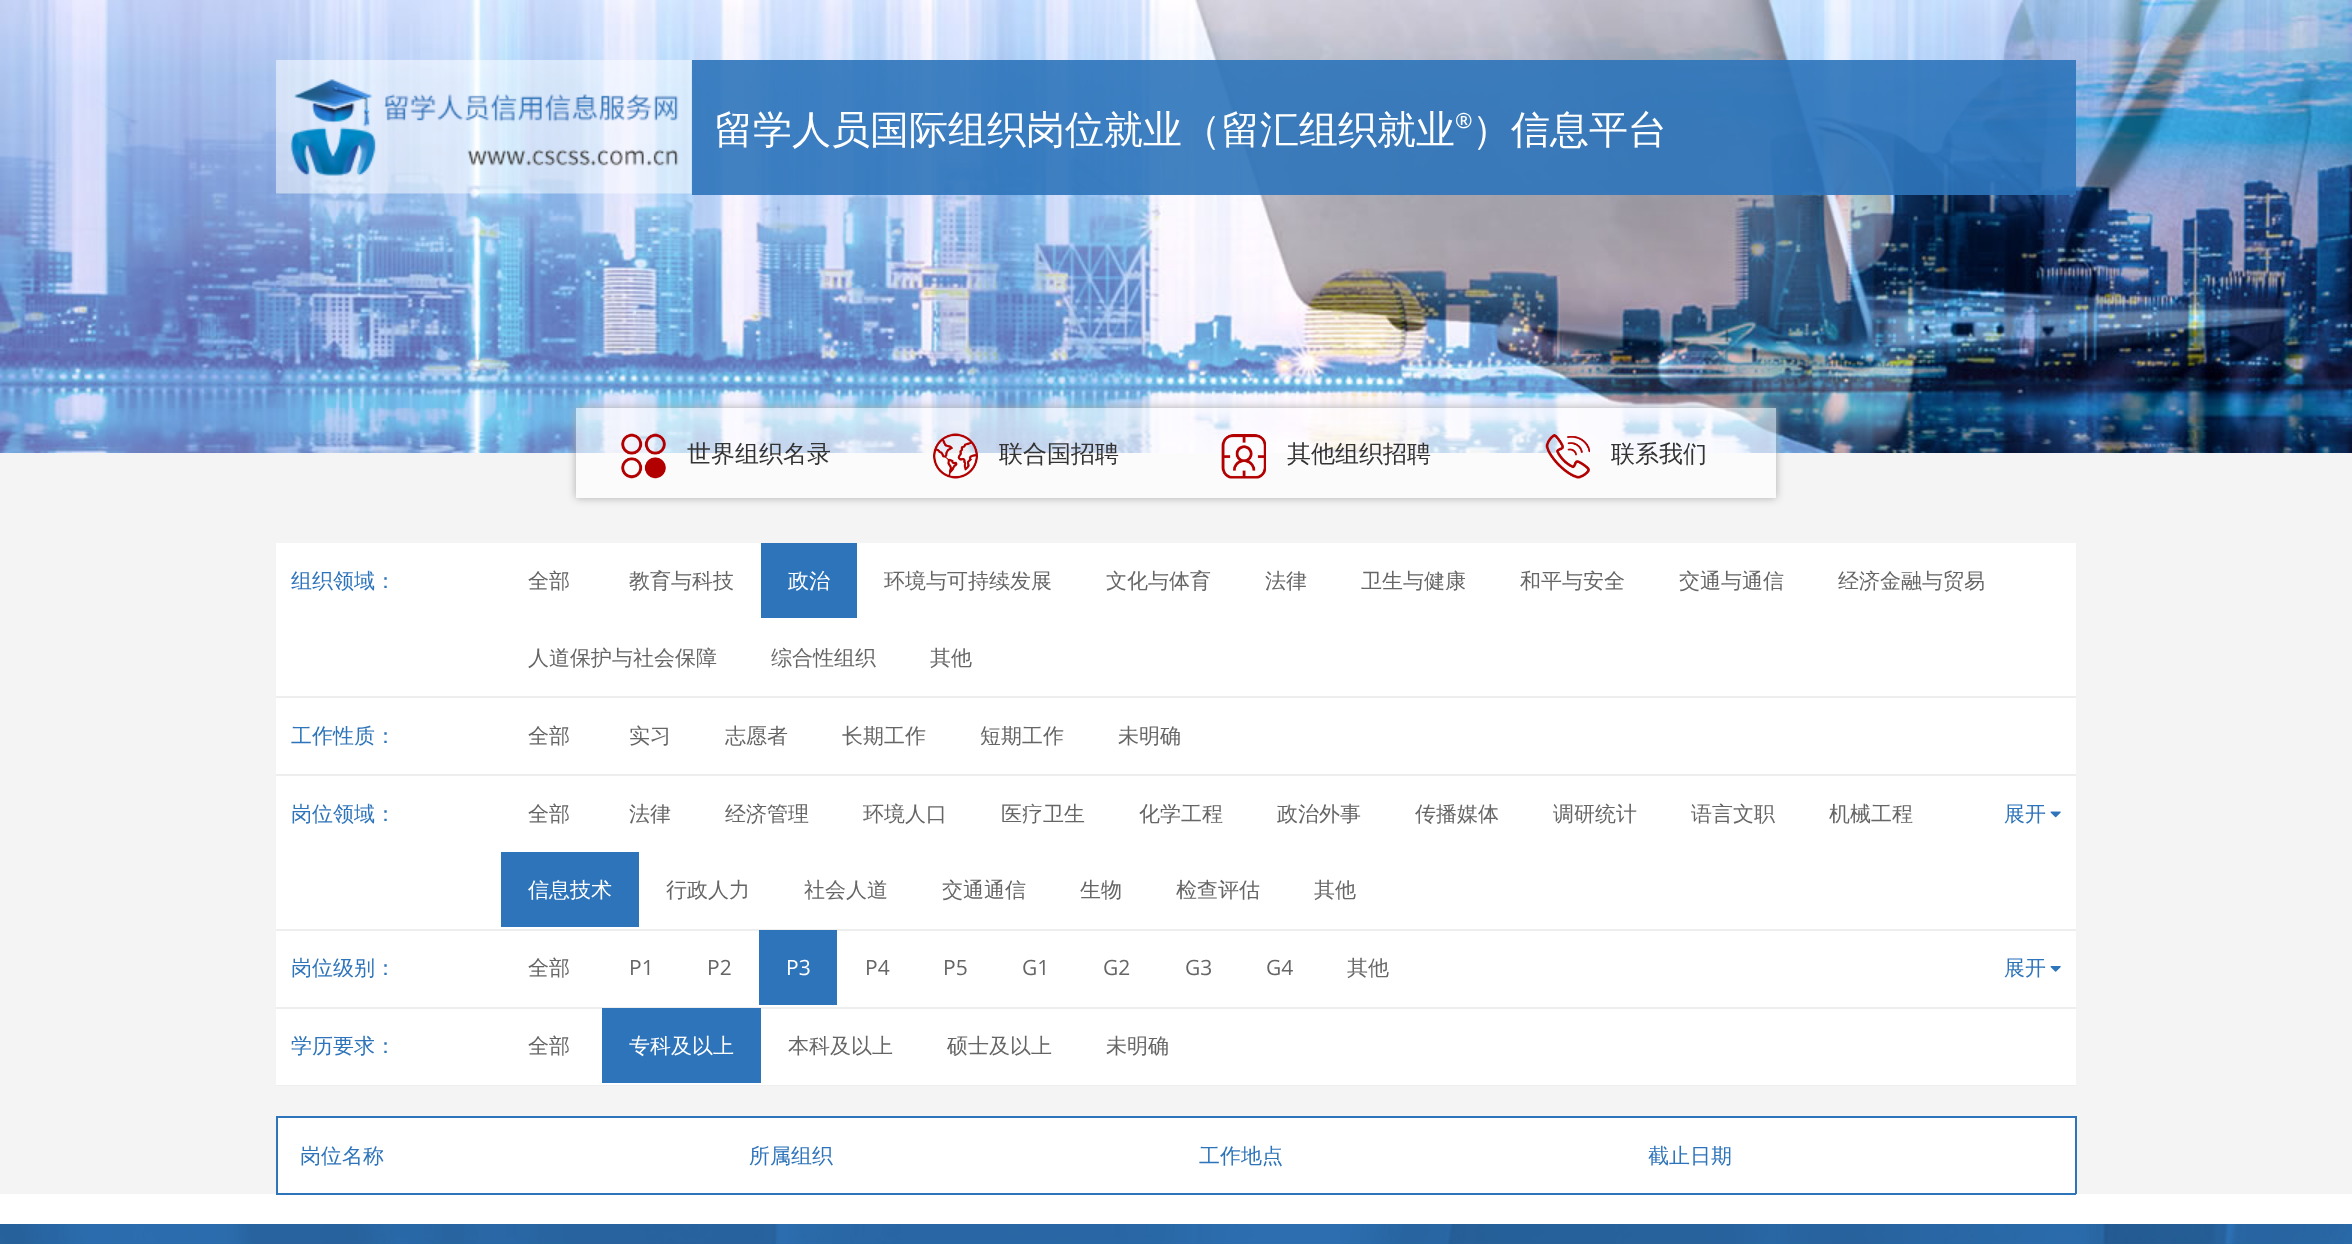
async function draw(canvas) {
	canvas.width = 2352;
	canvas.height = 1244;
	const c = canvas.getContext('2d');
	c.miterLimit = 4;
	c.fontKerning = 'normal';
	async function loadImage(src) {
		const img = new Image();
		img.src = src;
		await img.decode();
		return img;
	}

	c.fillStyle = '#fff';
	c.fillRect(0, 0, 2352, 1244);
	c.drawImage(await loadImage('img1.png'), 0, 0, 2352, 453);
	c.drawImage(await loadImage('img2.png'), 276, 60, 416, 134);
	c.fillStyle = '#2e74bae6';
	c.fillRect(692, 60, 1384, 135);
	c.font = '500 39px WenQuanYi Zen Hei';
	c.fillStyle = '#fff';
	c.fillText('留学人员国际组织岗位就业（留汇组织就业', 714, 143);
	c.font = '500 21px Open Sans';
	c.fillText('®', 1455, 128);
	c.font = '500 39px WenQuanYi Zen Hei';
	c.fillText('）信息平台', 1472, 143);
	c.fillStyle = '#f4f4f4';
	c.fillRect(0, 453, 2352, 741);
	c.save();
	c.beginPath();
	c.moveTo(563, 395);
	c.lineTo(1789, 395);
	c.lineTo(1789, 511);
	c.lineTo(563, 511);
	c.closePath();
	c.moveTo(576, 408);
	c.lineTo(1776, 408);
	c.lineTo(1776, 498);
	c.lineTo(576, 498);
	c.closePath();
	c.clip('evenodd');
	c.fillStyle = '#ababab';
	c.filter = 'blur(4px)';
	c.beginPath();
	c.rect(576, 408, 1200, 90);
	c.fill();
	c.filter = 'none';
	c.restore();
	c.fillStyle = '#ffffff99';
	c.fillRect(576, 408, 1200, 90);
	c.drawImage(await loadImage('img3.png'), 621, 433, 45, 46);
	c.font = '500 24px WenQuanYi Zen Hei';
	c.fillStyle = '#333';
	c.fillText('世界组织名录', 687, 462);
	c.drawImage(await loadImage('img4.png'), 933, 433, 45, 46);
	c.fillText('联合国招聘', 999, 462);
	c.drawImage(await loadImage('img5.png'), 1221, 434, 45, 45);
	c.fillText('其他组织招聘', 1287, 462);
	c.drawImage(await loadImage('img6.png'), 1545, 434, 45, 45);
	c.fillText('联系我们', 1611, 462);
	c.fillStyle = '#fff';
	c.fillRect(276, 543, 1800, 542);
	c.fillStyle = '#eee';
	c.fillRect(276, 696, 1800, 2);
	c.font = '500 21px WenQuanYi Zen Hei';
	c.fillStyle = '#2e74ba';
	c.fillText('组织领域：', 291, 588);
	c.fillStyle = '#666';
	c.fillText('全部', 528, 588);
	c.fillText('教育与科技', 629, 588);
	c.fillStyle = '#2e74ba';
	c.fillRect(761, 543, 96, 75);
	c.fillStyle = '#fff';
	c.fillText('政治', 788, 588);
	c.fillStyle = '#666';
	for (const [text, x, y] of [
		['环境与可持续发展', 884, 588],
		['文化与体育', 1106, 588],
		['法律', 1265, 588],
		['卫生与健康', 1361, 588],
		['和平与安全', 1520, 588],
		['交通与通信', 1679, 588],
		['经济金融与贸易', 1838, 588],
		['人道保护与社会保障', 528, 665],
		['综合性组织', 771, 665],
		['其他', 930, 665],
	]) {
		c.fillText(text, x, y);
	}
	c.fillStyle = '#eee';
	c.fillRect(276, 774, 1800, 2);
	c.fillStyle = '#2e74ba';
	c.fillText('工作性质：', 291, 743);
	c.fillStyle = '#666';
	for (const [text, x, y] of [
		['全部', 528, 743],
		['实习', 629, 743],
		['志愿者', 725, 743],
		['长期工作', 842, 743],
		['短期工作', 980, 743],
		['未明确', 1118, 743],
	]) {
		c.fillText(text, x, y);
	}
	c.fillStyle = '#eee';
	c.fillRect(276, 929, 1800, 2);
	c.fillStyle = '#2e74ba';
	c.fillText('岗位领域：', 291, 821);
	c.fillStyle = '#666';
	for (const [text, x, y] of [
		['全部', 528, 821],
		['法律', 629, 821],
		['经济管理', 725, 821],
		['环境人口', 863, 821],
		['医疗卫生', 1001, 821],
		['化学工程', 1139, 821],
		['政治外事', 1277, 821],
		['传播媒体', 1415, 821],
		['调研统计', 1553, 821],
		['语言文职', 1691, 821],
		['机械工程', 1829, 821],
	]) {
		c.fillText(text, x, y);
	}
	c.fillStyle = '#2e74ba';
	c.fillRect(501, 852, 138, 75);
	c.fillStyle = '#fff';
	c.fillText('信息技术', 528, 897);
	c.fillStyle = '#666';
	for (const [text, x, y] of [
		['行政人力', 666, 897],
		['社会人道', 804, 897],
		['交通通信', 942, 897],
		['生物', 1080, 897],
		['检查评估', 1176, 897],
		['其他', 1314, 897],
	]) {
		c.fillText(text, x, y);
	}
	c.fillStyle = '#2e74ba';
	c.fillText('展开', 2004, 821);
	c.drawImage(await loadImage('img7.png'), 2050, 811, 11, 7);
	c.fillStyle = '#eee';
	c.fillRect(276, 1007, 1800, 2);
	c.fillStyle = '#2e74ba';
	c.fillText('岗位级别：', 291, 975);
	c.fillStyle = '#666';
	c.fillText('全部', 528, 975);
	c.font = '21px Open Sans';
	c.fillText('P1', 629, 975);
	c.fillText('P2', 707, 975);
	c.fillStyle = '#2e74ba';
	c.fillRect(759, 930, 78, 75);
	c.fillStyle = '#fff';
	c.fillText('P3', 786, 975);
	c.fillStyle = '#666';
	for (const [text, x, y] of [
		['P4', 865, 975],
		['P5', 943, 975],
		['G1', 1022, 975],
		['G2', 1103, 975],
		['G3', 1185, 975],
		['G4', 1266, 975],
	]) {
		c.fillText(text, x, y);
	}
	c.font = '500 21px WenQuanYi Zen Hei';
	c.fillText('其他', 1347, 975);
	c.fillStyle = '#2e74ba';
	c.fillText('展开', 2004, 975);
	c.drawImage(await loadImage('img8.png'), 2050, 966, 11, 6);
	c.fillStyle = '#eee';
	c.fillRect(276, 1085, 1800, 1);
	c.fillStyle = '#2e74ba';
	c.fillText('学历要求：', 291, 1053);
	c.fillStyle = '#666';
	c.fillText('全部', 528, 1053);
	c.fillStyle = '#2e74ba';
	c.fillRect(602, 1008, 159, 75);
	c.fillStyle = '#fff';
	c.fillText('专科及以上', 629, 1053);
	c.fillStyle = '#666';
	for (const [text, x, y] of [
		['本科及以上', 788, 1053],
		['硕士及以上', 947, 1053],
		['未明确', 1106, 1053],
	]) {
		c.fillText(text, x, y);
	}
	for (const [x, y, w, h, color] of [
		[276, 1116, 1800, 2, '#2e74ba'],
		[2075, 1116, 2, 78, '#2e74ba'],
		[276, 1193, 1800, 2, '#2e74ba'],
		[276, 1116, 2, 78, '#2e74ba'],
		[278, 1118, 1797, 75, '#fff'],
	]) {
		c.fillStyle = color;
		c.fillRect(x, y, w, h);
	}
	c.fillStyle = '#2e74ba';
	for (const [text, x, y] of [
		['岗位名称', 300, 1163],
		['所属组织', 749, 1163],
		['工作地点', 1199, 1163],
		['截止日期', 1648, 1163],
	]) {
		c.fillText(text, x, y);
	}
	c.drawImage(await loadImage('img9.png'), 0, 1224, 2352, 20);
}

draw(document.querySelector('canvas'));
